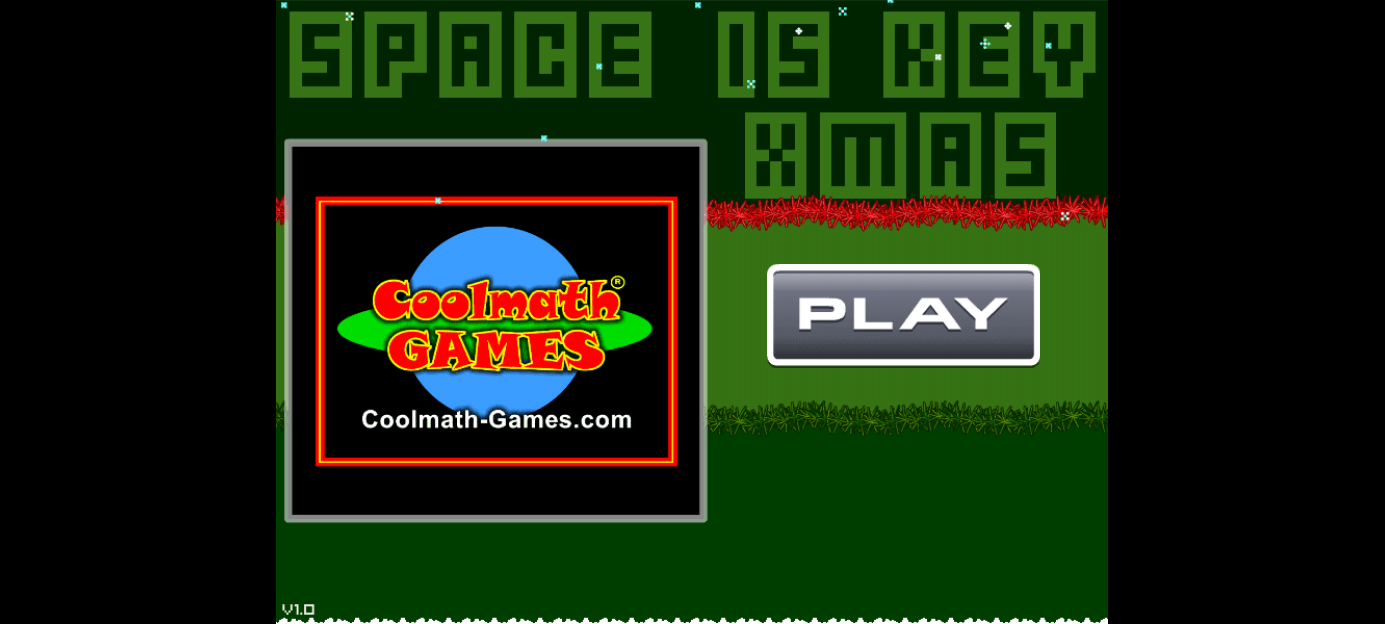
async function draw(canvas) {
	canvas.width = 1385;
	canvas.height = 624;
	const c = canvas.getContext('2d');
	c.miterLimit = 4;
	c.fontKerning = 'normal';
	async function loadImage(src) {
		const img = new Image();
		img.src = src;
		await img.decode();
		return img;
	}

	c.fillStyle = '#000';
	c.fillRect(0, 0, 1385, 624);
	c.drawImage(await loadImage('img1.png'), 276, 0, 832, 624);
}

draw(document.querySelector('canvas'));
